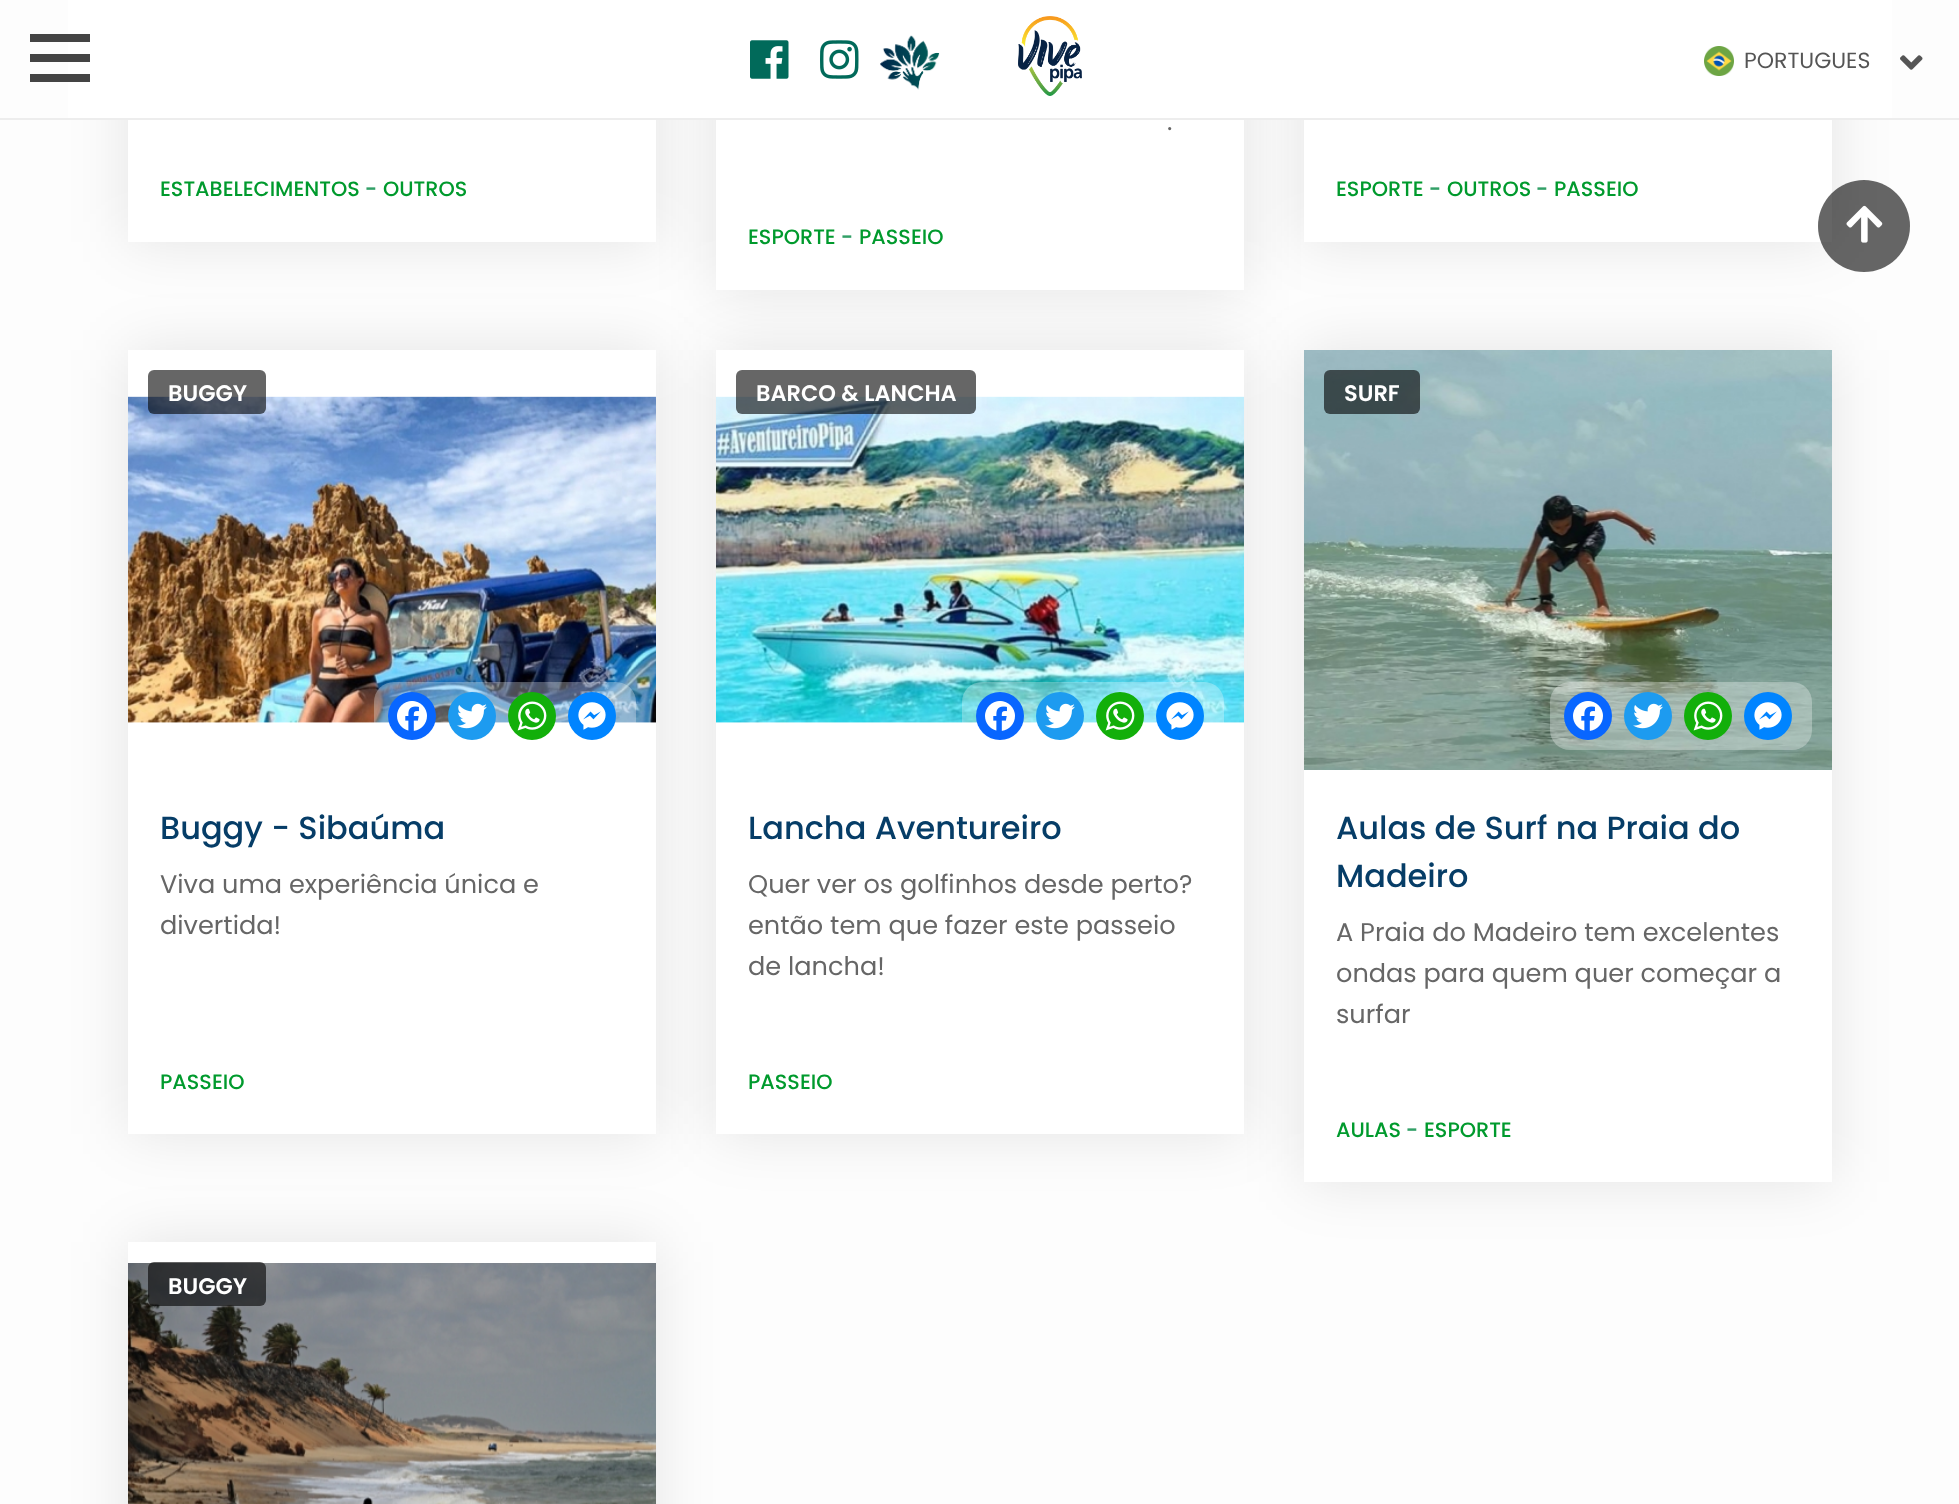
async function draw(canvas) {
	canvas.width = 1959;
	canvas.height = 1504;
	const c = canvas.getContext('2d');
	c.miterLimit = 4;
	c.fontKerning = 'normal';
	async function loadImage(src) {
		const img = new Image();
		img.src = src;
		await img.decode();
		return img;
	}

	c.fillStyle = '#fdfdfd';
	c.fillRect(0, 0, 1959, 1504);
	c.fillStyle = '#0000001a';
	c.filter = 'blur(30px)';
	c.beginPath();
	c.rect(128, -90, 528, 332);
	c.fill();
	c.filter = 'none';
	c.fillStyle = '#fff';
	c.fillRect(128, 120, 528, 122);
	c.fillStyle = '#0000001a';
	c.filter = 'blur(30px)';
	c.beginPath();
	c.rect(716, -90, 528, 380);
	c.fill();
	c.filter = 'none';
	c.fillStyle = '#fff';
	c.fillRect(716, 120, 528, 170);
	c.fillStyle = '#0000001a';
	c.filter = 'blur(30px)';
	c.beginPath();
	c.rect(1304, -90, 528, 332);
	c.fill();
	c.filter = 'none';
	for (const [x, y, w, h, color] of [
		[68, 0, 1824, 118, '#fff'],
		[0, 118, 1959, 2, '#ededed'],
		[30, 54, 60, 8, '#444'],
		[30, 34, 60, 8, '#444'],
		[30, 74, 60, 8, '#444'],
	]) {
		c.fillStyle = color;
		c.fillRect(x, y, w, h);
	}
	c.drawImage(await loadImage('img1.png'), 750, 40, 39, 39);
	c.drawImage(await loadImage('img2.png'), 820, 40, 39, 39);
	c.drawImage(await loadImage('img3.png'), 880, 35, 60, 55);
	c.drawImage(await loadImage('img4.png'), 1018, 16, 64, 80);
	c.drawImage(await loadImage('img5.png'), 1704, 46, 30, 30);
	c.font = '22px Poppins';
	c.fillStyle = '#555';
	c.fillText('PORTUGUES', 1744, 68);
	c.drawImage(await loadImage('img6.png'), 1900, 55, 23, 15);
	c.font = '500 20.75px Poppins';
	c.fillStyle = '#009a2d';
	c.fillText('ESTABELECIMENTOS', 160, 196);
	c.font = '600 20.75px Poppins';
	c.fillStyle = '#32a067';
	c.fillText('-', 365, 196);
	c.font = '500 20.75px Poppins';
	c.fillStyle = '#009a2d';
	c.fillText('OUTROS', 383, 196);
	c.font = '25.6px Poppins';
	c.fillStyle = '#666';
	c.fillText('.', 1167, 130);
	c.font = '500 20.75px Poppins';
	c.fillStyle = '#009a2d';
	c.fillText('ESPORTE', 748, 244);
	c.font = '600 20.75px Poppins';
	c.fillStyle = '#32a067';
	c.fillText('-', 841, 244);
	c.font = '500 20.75px Poppins';
	c.fillStyle = '#009a2d';
	c.fillText('PASSEIO', 859, 244);
	c.fillStyle = '#fff';
	c.fillRect(1304, 120, 528, 122);
	c.fillStyle = '#009a2d';
	c.fillText('ESPORTE', 1336, 196);
	c.font = '600 20.75px Poppins';
	c.fillStyle = '#32a067';
	c.fillText('-', 1429, 196);
	c.font = '500 20.75px Poppins';
	c.fillStyle = '#009a2d';
	c.fillText('OUTROS', 1447, 196);
	c.font = '600 20.75px Poppins';
	c.fillStyle = '#32a067';
	c.fillText('-', 1536, 196);
	c.font = '500 20.75px Poppins';
	c.fillStyle = '#009a2d';
	c.fillText('PASSEIO', 1554, 196);
	c.fillStyle = '#0000001a';
	c.filter = 'blur(30px)';
	c.beginPath();
	c.rect(128, 350, 528, 784);
	c.fill();
	c.filter = 'none';
	c.fillStyle = '#fff';
	c.fillRect(128, 350, 528, 784);
	c.drawImage(await loadImage('img7.png'), 128, 396, 528, 327);
	c.fillStyle = '#00000099';
	c.beginPath();
	c.roundRect(148, 370, 118, 44, 6);
	c.fill();
	c.font = '600 22.5px Poppins';
	c.fillStyle = '#fff';
	c.fillText('BUGGY', 168, 401);
	c.fillStyle = '#ffffff4d';
	c.beginPath();
	c.roundRect(374, 682, 262, 68, 20);
	c.fill();
	c.fillStyle = '#0866ff';
	c.beginPath();
	c.arc(412, 716, 24, 0, 2 * Math.PI);
	c.fill();
	c.drawImage(await loadImage('img8.png'), 397, 701, 30, 30);
	c.fillStyle = '#1d9bf0';
	c.beginPath();
	c.arc(472, 716, 24, 0, 2 * Math.PI);
	c.fill();
	c.drawImage(await loadImage('img9.png'), 457, 703, 30, 26);
	c.fillStyle = '#12af0a';
	c.beginPath();
	c.arc(532, 716, 24, 0, 2 * Math.PI);
	c.fill();
	c.drawImage(await loadImage('img10.png'), 517, 701, 30, 30);
	c.fillStyle = '#0084ff';
	c.beginPath();
	c.arc(592, 716, 24, 0, 2 * Math.PI);
	c.fill();
	c.drawImage(await loadImage('img11.png'), 578, 702, 28, 28);
	c.font = '500 32px Poppins';
	c.fillStyle = '#063d67';
	c.fillText('Buggy - Sibaúma', 160, 839);
	c.font = '25.6px Poppins';
	c.fillStyle = '#666';
	c.fillText('Viva uma experiência única e', 160, 893);
	c.fillText('divertida!', 160, 934);
	c.font = '500 20.75px Poppins';
	c.fillStyle = '#009a2d';
	c.fillText('PASSEIO', 160, 1089);
	c.fillStyle = '#0000001a';
	c.filter = 'blur(30px)';
	c.beginPath();
	c.rect(716, 350, 528, 784);
	c.fill();
	c.filter = 'none';
	c.fillStyle = '#fff';
	c.fillRect(716, 350, 528, 784);
	c.drawImage(await loadImage('img12.png'), 716, 396, 528, 327);
	c.fillStyle = '#00000099';
	c.beginPath();
	c.roundRect(736, 370, 240, 44, 6);
	c.fill();
	c.font = '600 22.5px Poppins';
	c.fillStyle = '#fff';
	c.fillText('BARCO & LANCHA', 756, 401);
	c.fillStyle = '#ffffff4d';
	c.beginPath();
	c.roundRect(962, 682, 262, 68, 20);
	c.fill();
	c.fillStyle = '#0866ff';
	c.beginPath();
	c.arc(1000, 716, 24, 0, 2 * Math.PI);
	c.fill();
	c.drawImage(await loadImage('img8.png'), 985, 701, 30, 30);
	c.fillStyle = '#1d9bf0';
	c.beginPath();
	c.arc(1060, 716, 24, 0, 2 * Math.PI);
	c.fill();
	c.drawImage(await loadImage('img9.png'), 1045, 703, 30, 26);
	c.fillStyle = '#12af0a';
	c.beginPath();
	c.arc(1120, 716, 24, 0, 2 * Math.PI);
	c.fill();
	c.drawImage(await loadImage('img10.png'), 1105, 701, 30, 30);
	c.fillStyle = '#0084ff';
	c.beginPath();
	c.arc(1180, 716, 24, 0, 2 * Math.PI);
	c.fill();
	c.drawImage(await loadImage('img11.png'), 1166, 702, 28, 28);
	c.font = '500 32px Poppins';
	c.fillStyle = '#063d67';
	c.fillText('Lancha Aventureiro', 748, 839);
	c.font = '25.6px Poppins';
	c.fillStyle = '#666';
	for (const [text, x, y] of [
		['Quer ver os golfinhos desde perto?', 748, 893],
		['então tem que fazer este passeio', 748, 934],
		['de lancha!', 748, 975],
	]) {
		c.fillText(text, x, y);
	}
	c.font = '500 20.75px Poppins';
	c.fillStyle = '#009a2d';
	c.fillText('PASSEIO', 748, 1089);
	c.fillStyle = '#0000001a';
	c.filter = 'blur(30px)';
	c.beginPath();
	c.rect(1304, 350, 528, 832);
	c.fill();
	c.filter = 'none';
	c.fillStyle = '#fff';
	c.fillRect(1304, 770, 528, 412);
	c.drawImage(await loadImage('img13.png'), 1304, 350, 528, 420);
	c.fillStyle = '#00000099';
	c.beginPath();
	c.roundRect(1324, 370, 96, 44, 6);
	c.fill();
	c.font = '600 22.5px Poppins';
	c.fillStyle = '#fff';
	c.fillText('SURF', 1344, 401);
	c.fillStyle = '#ffffff4d';
	c.beginPath();
	c.roundRect(1550, 682, 262, 68, 20);
	c.fill();
	c.fillStyle = '#0866ff';
	c.beginPath();
	c.arc(1588, 716, 24, 0, 2 * Math.PI);
	c.fill();
	c.drawImage(await loadImage('img8.png'), 1573, 701, 30, 30);
	c.fillStyle = '#1d9bf0';
	c.beginPath();
	c.arc(1648, 716, 24, 0, 2 * Math.PI);
	c.fill();
	c.drawImage(await loadImage('img9.png'), 1633, 703, 30, 26);
	c.fillStyle = '#12af0a';
	c.beginPath();
	c.arc(1708, 716, 24, 0, 2 * Math.PI);
	c.fill();
	c.drawImage(await loadImage('img10.png'), 1693, 701, 30, 30);
	c.fillStyle = '#0084ff';
	c.beginPath();
	c.arc(1768, 716, 24, 0, 2 * Math.PI);
	c.fill();
	c.drawImage(await loadImage('img11.png'), 1754, 702, 28, 28);
	c.font = '500 32px Poppins';
	c.fillStyle = '#063d67';
	c.fillText('Aulas de Surf na Praia do', 1336, 839);
	c.fillText('Madeiro', 1336, 887);
	c.font = '25.6px Poppins';
	c.fillStyle = '#666';
	for (const [text, x, y] of [
		['A Praia do Madeiro tem excelentes', 1336, 941],
		['ondas para quem quer começar a', 1336, 982],
		['surfar', 1336, 1023],
	]) {
		c.fillText(text, x, y);
	}
	c.font = '500 20.75px Poppins';
	c.fillStyle = '#009a2d';
	c.fillText('AULAS', 1336, 1137);
	c.font = '600 20.75px Poppins';
	c.fillStyle = '#32a067';
	c.fillText('-', 1406, 1137);
	c.font = '500 20.75px Poppins';
	c.fillStyle = '#009a2d';
	c.fillText('ESPORTE', 1424, 1137);
	c.fillStyle = '#0000001a';
	c.filter = 'blur(30px)';
	c.beginPath();
	c.rect(128, 1242, 528, 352);
	c.fill();
	c.filter = 'none';
	c.fillStyle = '#fff';
	c.fillRect(128, 1242, 528, 21);
	c.drawImage(await loadImage('img14.png'), 128, 1263, 528, 241);
	c.fillStyle = '#00000099';
	c.beginPath();
	c.roundRect(148, 1262, 118, 44, 6);
	c.fill();
	c.font = '600 22.5px Poppins';
	c.fillStyle = '#fff';
	c.fillText('BUGGY', 168, 1294);
	c.fillStyle = '#00000099';
	c.beginPath();
	c.arc(1864, 226, 46, 0, 2 * Math.PI);
	c.fill();
	c.drawImage(await loadImage('img15.png'), 1846, 205, 37, 38);
}

draw(document.querySelector('canvas'));
